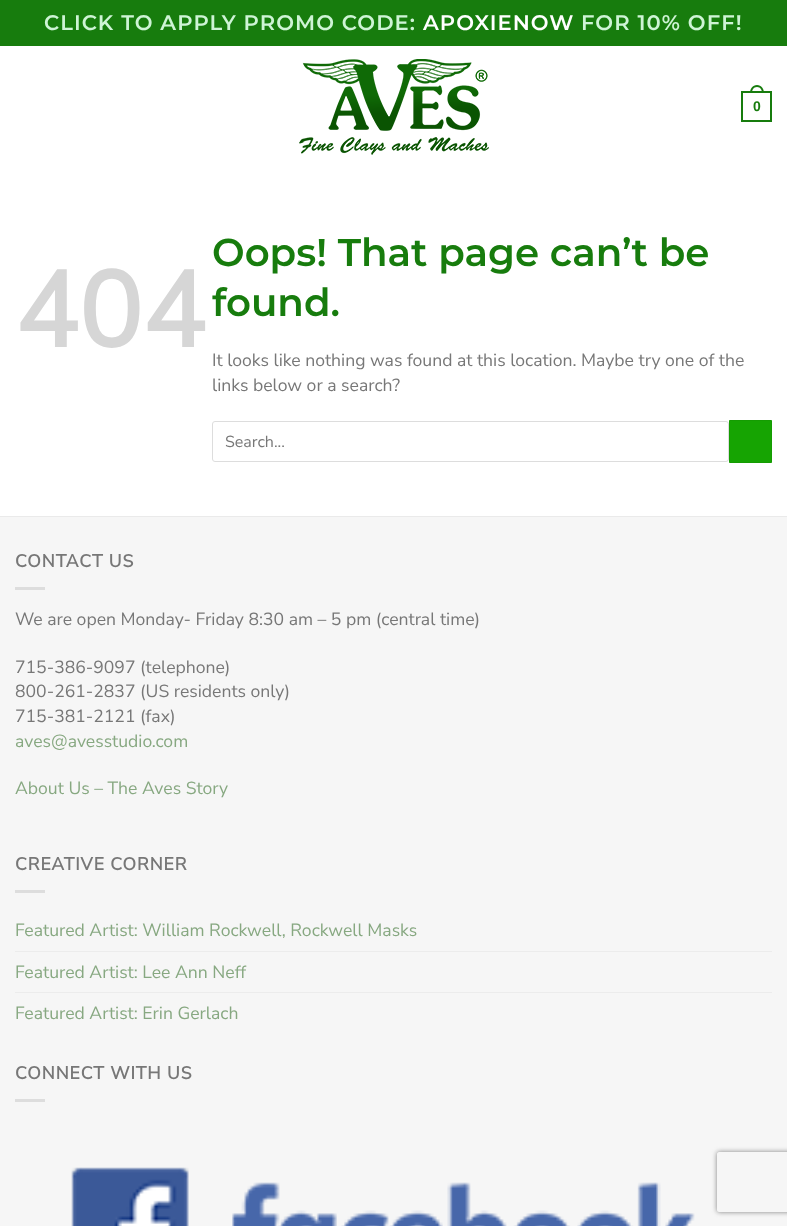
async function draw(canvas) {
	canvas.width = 787;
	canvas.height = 1226;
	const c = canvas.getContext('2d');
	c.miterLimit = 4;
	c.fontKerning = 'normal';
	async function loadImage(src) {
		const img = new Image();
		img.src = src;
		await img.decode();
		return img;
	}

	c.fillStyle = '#fff';
	c.fillRect(0, 0, 787, 1226);
	c.fillStyle = '#177c0d';
	c.fillRect(0, 0, 787, 46);
	c.letterSpacing = '1.05px';
	c.font = '100 21.1px Montserrat';
	c.fillStyle = '#cef4d5';
	c.fillText('CLICK TO APPLY PROMO CODE:', 44, 30);
	c.fillStyle = '#fff';
	c.fillText('APOXIENOW', 423, 30);
	c.fillStyle = '#cef4d5';
	c.fillText('FOR 10% OFF!', 581, 30);
	c.drawImage(await loadImage('img1.png'), 299, 59, 190, 96);
	c.strokeStyle = '#177c0d';
	c.lineWidth = 2;
	c.strokeRect(742, 92, 29, 29);
	c.fillStyle = '#177c0d';
	c.beginPath();
	c.moveTo(757, 85);
	c.bezierCurveTo(761.5, 85, 764, 89, 764, 93);
	c.lineTo(750, 93);
	c.bezierCurveTo(750, 89, 752.5, 85, 757, 85);
	c.closePath();
	c.moveTo(757, 87);
	c.bezierCurveTo(760.5, 87, 762, 90, 762, 93);
	c.lineTo(752, 93);
	c.bezierCurveTo(752, 90, 753.5, 87, 757, 87);
	c.closePath();
	c.fill('evenodd');
	c.letterSpacing = '0px';
	c.font = 'bold 14px Liberation Sans';
	c.fillText('0', 753, 111);
	c.font = 'bold 106px Nunito Sans';
	c.fillStyle = '#d6d6d6';
	c.fillText('404', 15, 347);
	c.font = '100 38.75px Montserrat';
	c.fillStyle = '#177c0d';
	c.fillText('Oops! That page can’t be', 212, 266);
	c.fillText('found.', 212, 316);
	c.font = '200 17.6px Nunito Sans';
	c.fillStyle = '#777';
	c.fillText('It looks like nothing was found at this location. Maybe try one of the', 212, 366);
	c.fillText('links below or a search?', 212, 391);
	c.beginPath();
	c.roundRect(212.5, 421.5, 516, 40, 2.5);
	c.strokeStyle = '#ddd';
	c.lineWidth = 1;
	c.stroke();
	c.font = '200 16px Nunito Sans';
	c.fillText('Search...', 225, 447);
	c.fillStyle = '#16a402';
	c.beginPath();
	c.rect(729.5, 420.5, 42, 42);
	c.fill();
	c.strokeStyle = '#159c02';
	c.stroke();
	c.fillStyle = '#f6f6f6';
	c.fillRect(0, 517, 787, 709);
	c.fillStyle = '#eaeaea';
	c.fillRect(0, 516, 787, 1);
	c.letterSpacing = '0.9px';
	c.font = 'bold 17.6px Nunito Sans';
	c.fillStyle = '#777';
	c.fillText('CONTACT US', 15, 567);
	c.fillStyle = '#ddd';
	c.fillRect(15, 587, 30, 3);
	c.letterSpacing = '0px';
	c.font = '200 17.6px Nunito Sans';
	c.fillStyle = '#777';
	for (const [text, x, y] of [
		['We are open Monday- Friday 8:30 am – 5 pm (central time)', 15, 625],
		['715-386-9097 (telephone)', 15, 673],
		['800-261-2837 (US residents only)', 15, 697],
		['715-381-2121 (fax)', 15, 722],
	]) {
		c.fillText(text, x, y);
	}
	c.fillStyle = '#87a881';
	c.fillText('aves@avesstudio.com', 15, 747);
	c.fillText('About Us – The Aves Story', 15, 794);
	c.letterSpacing = '0.9px';
	c.font = 'bold 17.6px Nunito Sans';
	c.fillStyle = '#777';
	c.fillText('CREATIVE CORNER', 15, 870);
	c.fillStyle = '#ddd';
	c.fillRect(15, 890, 30, 3);
	c.letterSpacing = '0px';
	c.font = '200 17.6px Nunito Sans';
	c.fillStyle = '#87a881';
	c.fillText('Featured Artist: William Rockwell, Rockwell Masks', 15, 936);
	c.fillStyle = '#ececec';
	c.fillRect(15, 951, 757, 1);
	c.fillStyle = '#87a881';
	c.fillText('Featured Artist: Lee Ann Neff', 15, 978);
	c.fillStyle = '#ececec';
	c.fillRect(15, 992, 757, 1);
	c.fillStyle = '#87a881';
	c.fillText('Featured Artist: Erin Gerlach', 15, 1019);
	c.letterSpacing = '0.9px';
	c.font = 'bold 17.6px Nunito Sans';
	c.fillStyle = '#777';
	c.fillText('CONNECT WITH US', 15, 1079);
	c.fillStyle = '#ddd';
	c.fillRect(15, 1099, 30, 3);
	c.drawImage(await loadImage('img2.png'), 71, 1167, 624, 59);
	c.save();
	c.beginPath();
	c.moveTo(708, 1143);
	c.lineTo(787, 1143);
	c.lineTo(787, 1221);
	c.lineTo(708, 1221);
	c.closePath();
	c.moveTo(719, 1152);
	c.lineTo(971, 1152);
	c.bezierCurveTo(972, 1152, 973, 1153, 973, 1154);
	c.lineTo(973, 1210);
	c.bezierCurveTo(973, 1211, 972, 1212, 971, 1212);
	c.lineTo(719, 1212);
	c.bezierCurveTo(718, 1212, 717, 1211, 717, 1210);
	c.lineTo(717, 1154);
	c.bezierCurveTo(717, 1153, 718, 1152, 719, 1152);
	c.closePath();
	c.clip('evenodd');
	c.fillStyle = '#808080';
	c.filter = 'blur(2.5px)';
	c.beginPath();
	c.roundRect(717, 1152, 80, 60, 2);
	c.fill();
	c.filter = 'none';
	c.restore();
}

draw(document.querySelector('canvas'));
